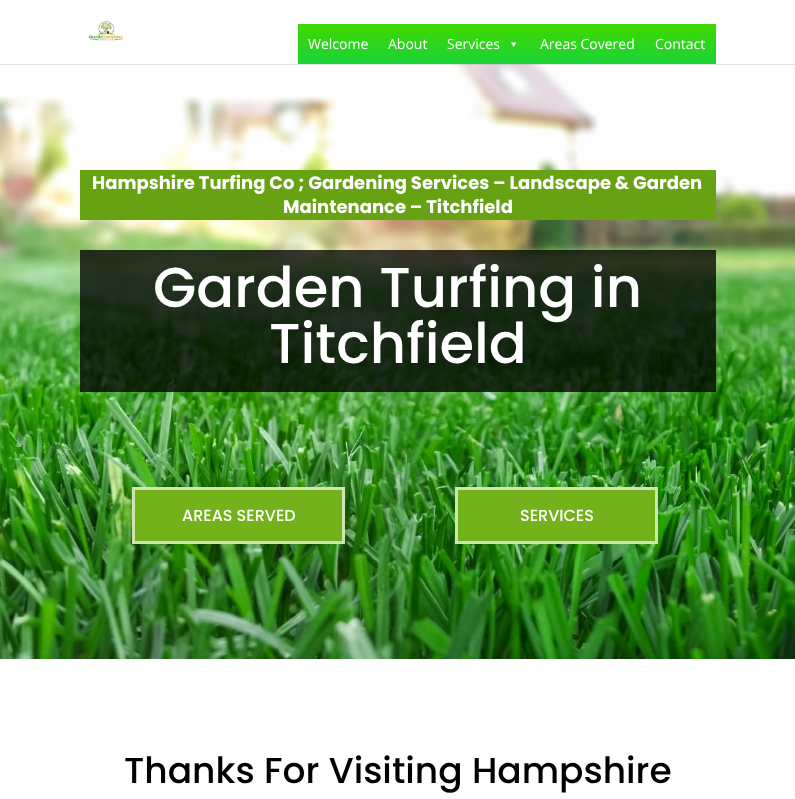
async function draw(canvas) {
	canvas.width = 795;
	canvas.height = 799;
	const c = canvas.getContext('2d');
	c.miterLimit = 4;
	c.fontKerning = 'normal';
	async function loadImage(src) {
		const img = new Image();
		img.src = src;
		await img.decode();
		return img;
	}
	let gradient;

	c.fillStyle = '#fff';
	c.fillRect(0, 0, 795, 799);
	c.drawImage(await loadImage('img2.png'), 0, 64, 795, 595);
	c.fillStyle = '#0000001a';
	c.fillRect(0, 64, 795, 1);
	c.drawImage(await loadImage('img1.png'), 88, 20, 35, 21);
	gradient = c.createLinearGradient(507, 24, 507, 64);
	gradient.addColorStop(0, '#41d700');
	gradient.addColorStop(1, '#1ad439');
	c.fillStyle = gradient;
	c.fillRect(298, 24, 418, 40);
	c.font = '14px Open Sans';
	c.fillStyle = '#fff';
	for (const [text, x, y] of [
		['Welcome', 308, 49],
		['About', 388, 49],
		['Services', 447, 49],
	]) {
		c.fillText(text, x, y);
	}
	c.beginPath();
	c.moveTo(516.5, 42.5);
	c.lineTo(513.5, 47);
	c.lineTo(511, 42.5);
	c.closePath();
	c.fill();
	c.fillText('Areas Covered', 540, 49);
	c.fillText('Contact', 655, 49);
	c.fillStyle = '#67a212';
	c.fillRect(80, 170, 636, 50);
	c.font = 'bold 18px Poppins';
	c.fillStyle = '#fff';
	c.fillText('Hampshire Turfing Co ; Gardening Services – Landscape & Garden', 92, 189);
	c.fillText('Maintenance – Titchfield', 283, 213);
	c.fillStyle = '#000000c4';
	c.fillRect(80, 250, 636, 142);
	c.font = '500 56px Poppins';
	c.fillStyle = '#fff';
	c.fillText('Garden Turfing in', 153, 307);
	c.fillText('Titchfield', 269, 363);
	c.fillStyle = '#73b21a';
	c.beginPath();
	c.rect(133.5, 488.5, 210, 54);
	c.fill();
	c.strokeStyle = '#cfe5b1';
	c.lineWidth = 3;
	c.stroke();
	c.font = '500 16px Poppins';
	c.fillStyle = '#fff';
	c.fillText('AREAS SERVED', 182, 521);
	c.fillStyle = '#73b21a';
	c.beginPath();
	c.rect(456.5, 488.5, 200, 54);
	c.fill();
	c.stroke();
	c.fillStyle = '#fff';
	c.fillText('SERVICES', 520, 521);
	c.font = '500 36px Poppins';
	c.fillStyle = '#000';
	c.fillText('Thanks For Visiting Hampshire', 124, 783);
}

draw(document.querySelector('canvas'));
